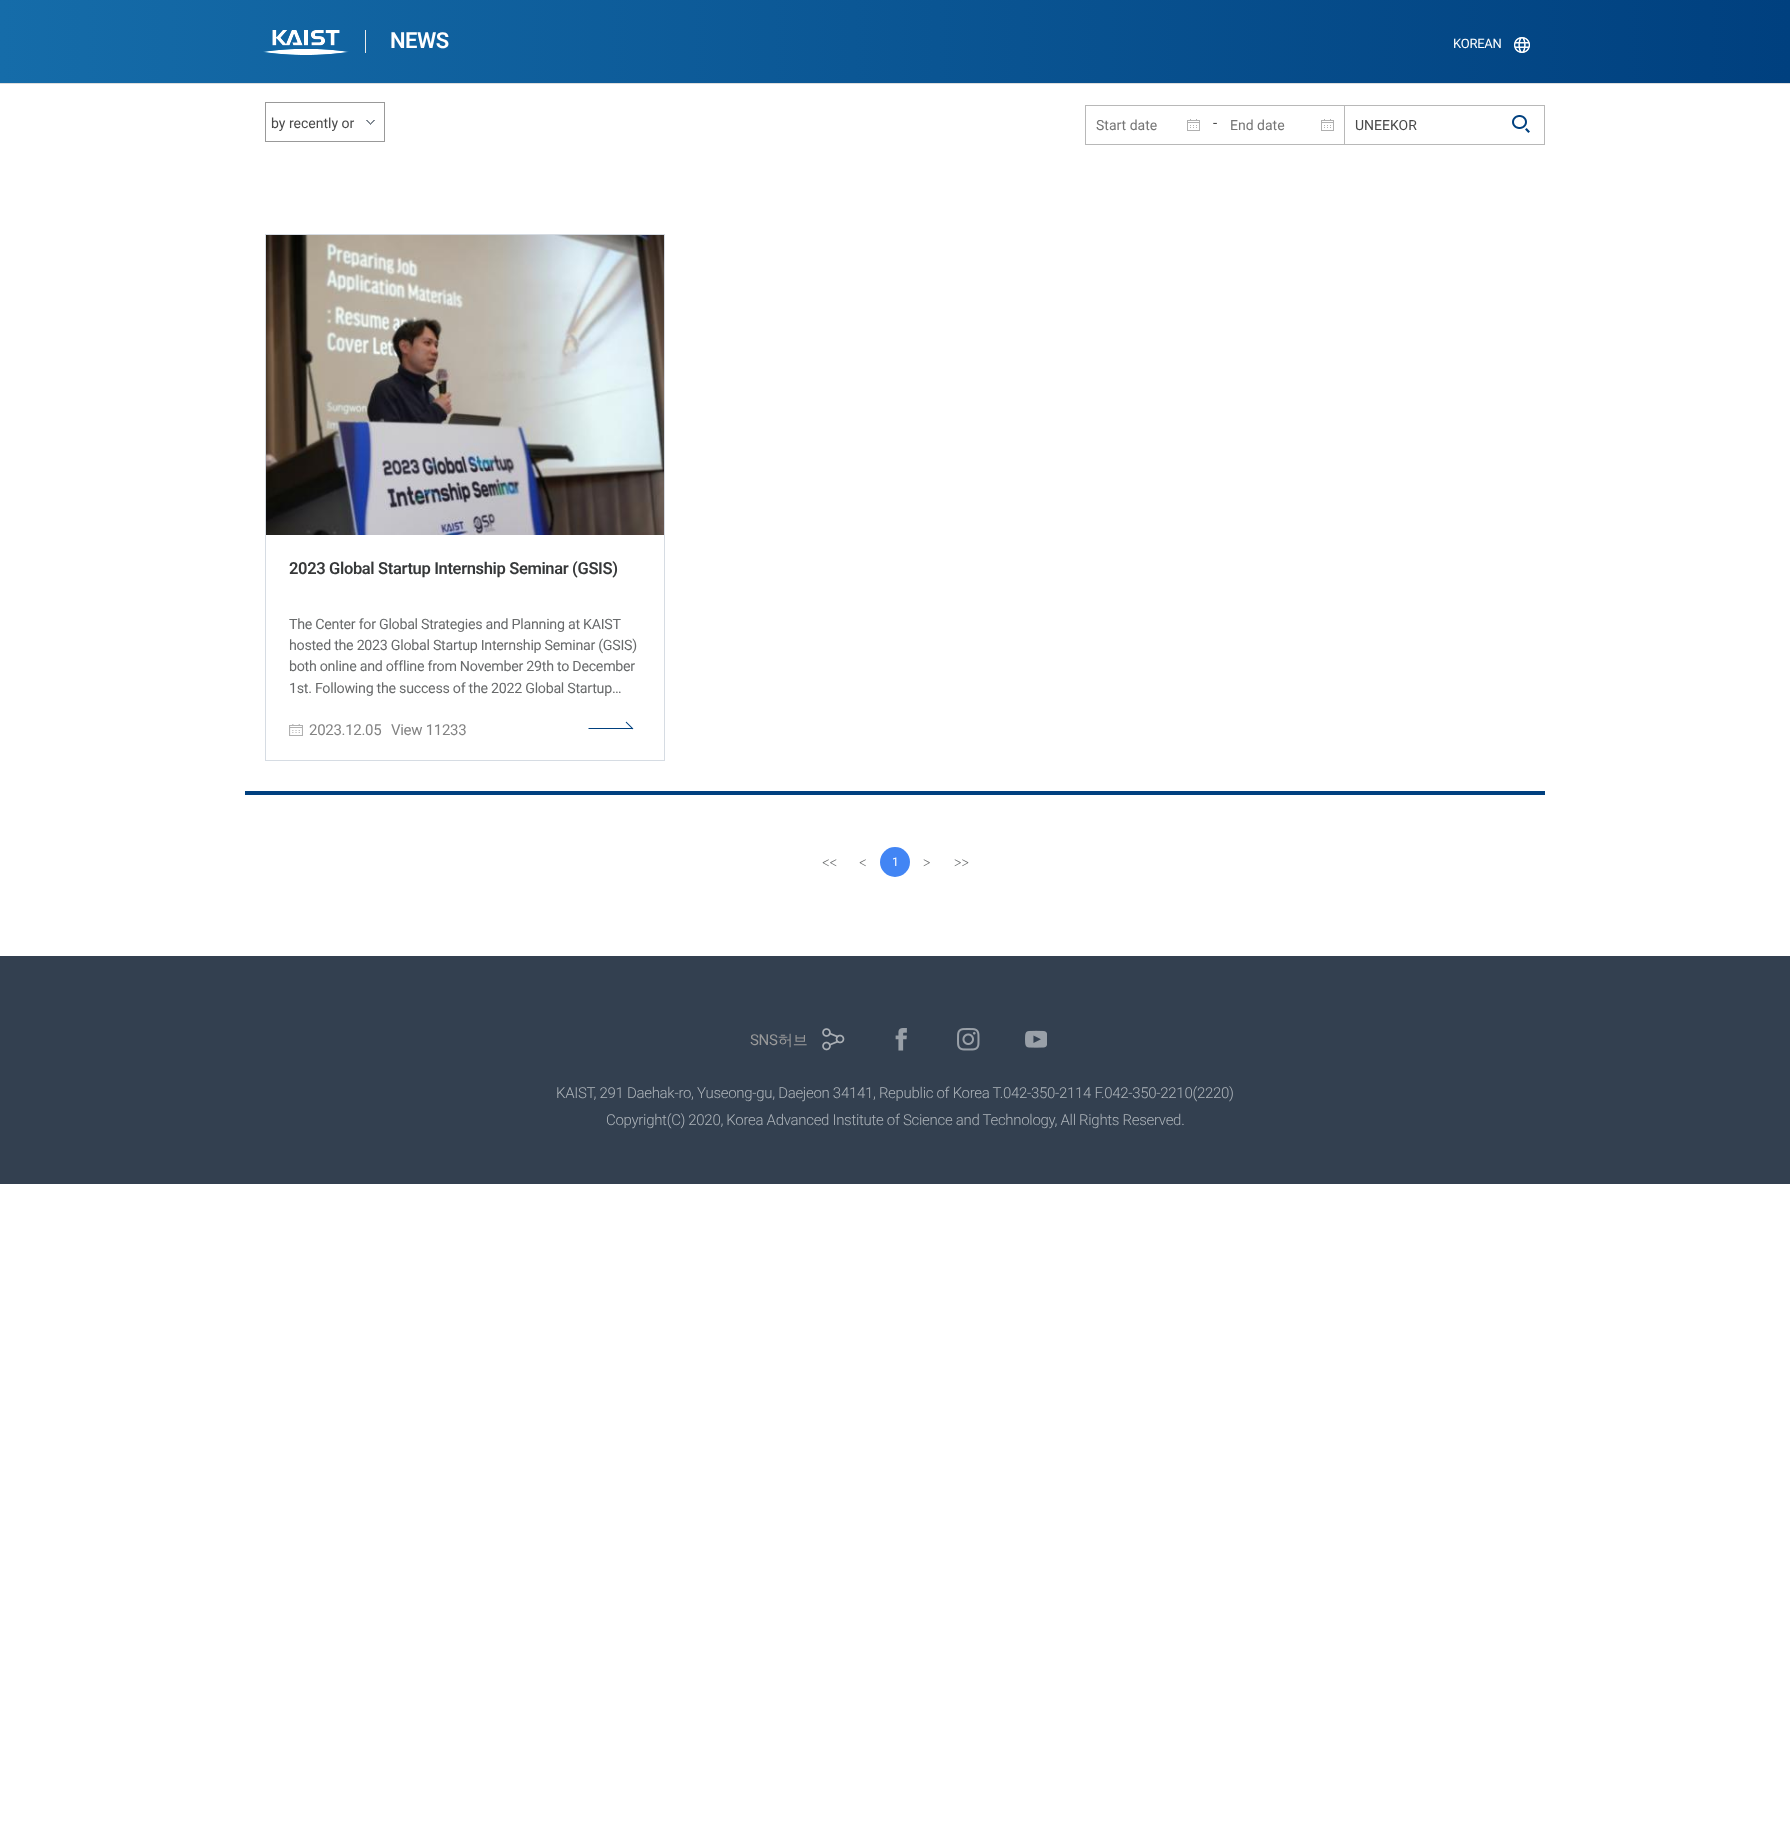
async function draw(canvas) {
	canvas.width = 1790;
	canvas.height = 1825;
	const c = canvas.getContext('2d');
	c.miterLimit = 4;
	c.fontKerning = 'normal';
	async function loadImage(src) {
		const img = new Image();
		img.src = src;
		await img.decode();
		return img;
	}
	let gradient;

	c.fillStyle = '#fff';
	c.fillRect(0, 0, 1790, 1825);
	gradient = c.createLinearGradient(0, 42, 1790, 41);
	gradient.addColorStop(0, '#156ca9');
	gradient.addColorStop(1, '#00407f');
	c.fillStyle = gradient;
	c.fillRect(0, 0, 1790, 83);
	c.fillStyle = '#ddd';
	c.fillRect(0, 83, 1790, 1);
	c.drawImage(await loadImage('img1.png'), 263, 30, 86, 25);
	c.fillStyle = '#eaeaea';
	c.fillRect(365, 30, 1, 23);
	c.letterSpacing = '-0.5px';
	c.font = '600 22px Roboto';
	c.fillStyle = '#fff';
	c.fillText('NEWS', 390, 48);
	c.letterSpacing = '-0.25px';
	c.font = '13px Roboto';
	c.fillText('KOREAN', 1453, 48);
	c.drawImage(await loadImage('img2.png'), 1514, 37, 16, 16);
	c.strokeStyle = '#b8b8b8';
	c.strokeRect(1085.5, 105.5, 259, 39);
	c.drawImage(await loadImage('img3.png'), 1187, 119, 13, 12);
	c.letterSpacing = '0px';
	c.font = '14px Roboto';
	c.fillStyle = '#757575';
	c.fillText('Start date', 1096, 130);
	c.letterSpacing = '-0.3px';
	c.font = '15px Roboto';
	c.fillStyle = '#494949';
	c.fillText('-', 1213, 128);
	c.drawImage(await loadImage('img3.png'), 1321, 119, 13, 12);
	c.letterSpacing = '0px';
	c.font = '14px Roboto';
	c.fillStyle = '#757575';
	c.fillText('End date', 1230, 130);
	for (const [x, y, w, h, color] of [
		[1345, 105, 200, 1, '#b8b8b8'],
		[1544, 105, 1, 40, '#b8b8b8'],
		[1345, 144, 200, 1, '#b8b8b8'],
	]) {
		c.fillStyle = color;
		c.fillRect(x, y, w, h);
	}
	c.fillStyle = '#494949';
	c.fillText('UNEEKOR', 1355, 130);
	c.drawImage(await loadImage('img4.png'), 1512, 115, 18, 18);
	c.drawImage(await loadImage('img5.png'), 366, 120, 9, 5);
	c.strokeStyle = '#999';
	c.strokeRect(265.5, 102.5, 119, 39);
	c.fillText('by recently or', 271, 128);
	c.strokeStyle = '#d6dce3';
	c.strokeRect(265.5, 234.5, 399, 526);
	c.drawImage(await loadImage('img6.png'), 266, 235, 398, 300);
	c.letterSpacing = '-0.35px';
	c.font = '600 16.5px Roboto';
	c.fillStyle = '#363839';
	c.fillText('2023 Global Startup Internship Seminar (GSIS)', 289, 574);
	c.letterSpacing = '-0.28px';
	c.font = '14.25px Roboto';
	c.fillStyle = '#686a6b';
	for (const [text, x, y] of [
		['The Center for Global Strategies and Planning at KAIST', 289, 629],
		['hosted the 2023 Global Startup Internship Seminar (GSIS)', 289, 650],
		['both online and offline from November 29th to December', 289, 671],
		['1st. Following the success of the 2022 Global Startup…', 289, 693],
	]) {
		c.fillText(text, x, y);
	}
	c.drawImage(await loadImage('img7.png'), 289, 724, 14, 12);
	c.letterSpacing = '-0.3px';
	c.font = '15px Roboto';
	c.fillStyle = '#838383';
	c.fillText('2023.12.05', 309, 735);
	c.fillText('View 11233', 391, 735);
	c.drawImage(await loadImage('img8.png'), 588, 721, 46, 9);
	c.fillStyle = '#00407f';
	c.fillRect(245, 791, 1300, 4);
	c.letterSpacing = '0px';
	c.font = '12px Dotum';
	c.fillStyle = '#686a6b';
	c.fillText('<<', 822, 867);
	c.fillText('<', 859, 867);
	c.fillStyle = '#4285f4';
	c.beginPath();
	c.arc(895, 862, 15, 0, 2 * Math.PI);
	c.fill();
	c.font = '12px Roboto';
	c.fillStyle = '#fff';
	c.fillText('1', 892, 866);
	c.font = '12px Dotum';
	c.fillStyle = '#686a6b';
	c.fillText('>', 923, 867);
	c.fillText('>>', 954, 867);
	c.fillStyle = '#334050';
	c.fillRect(0, 956, 1790, 228);
	c.letterSpacing = '-0.3px';
	c.font = '15px Roboto';
	c.fillStyle = '#999';
	c.fillText('SNS', 750, 1045);
	c.font = '500 15px WenQuanYi Zen Hei';
	c.fillText('허브', 778, 1045);
	c.drawImage(await loadImage('img9.png'), 822, 1028, 23, 23);
	c.drawImage(await loadImage('img10.png'), 895, 1028, 12, 23);
	c.drawImage(await loadImage('img11.png'), 957, 1028, 23, 23);
	c.drawImage(await loadImage('img12.png'), 1025, 1030, 22, 18);
	c.font = '300 15px Roboto';
	c.fillStyle = '#adb3b9';
	c.fillText('KAIST, 291 Daehak-ro, Yuseong-gu, Daejeon 34141, Republic of Korea T.042-350-2114 F.042-350-2210(2220)', 556, 1098);
	c.fillText('Copyright(C) 2020, Korea Advanced Institute of Science and Technology, All Rights Reserved.', 606, 1125);
}

draw(document.querySelector('canvas'));
